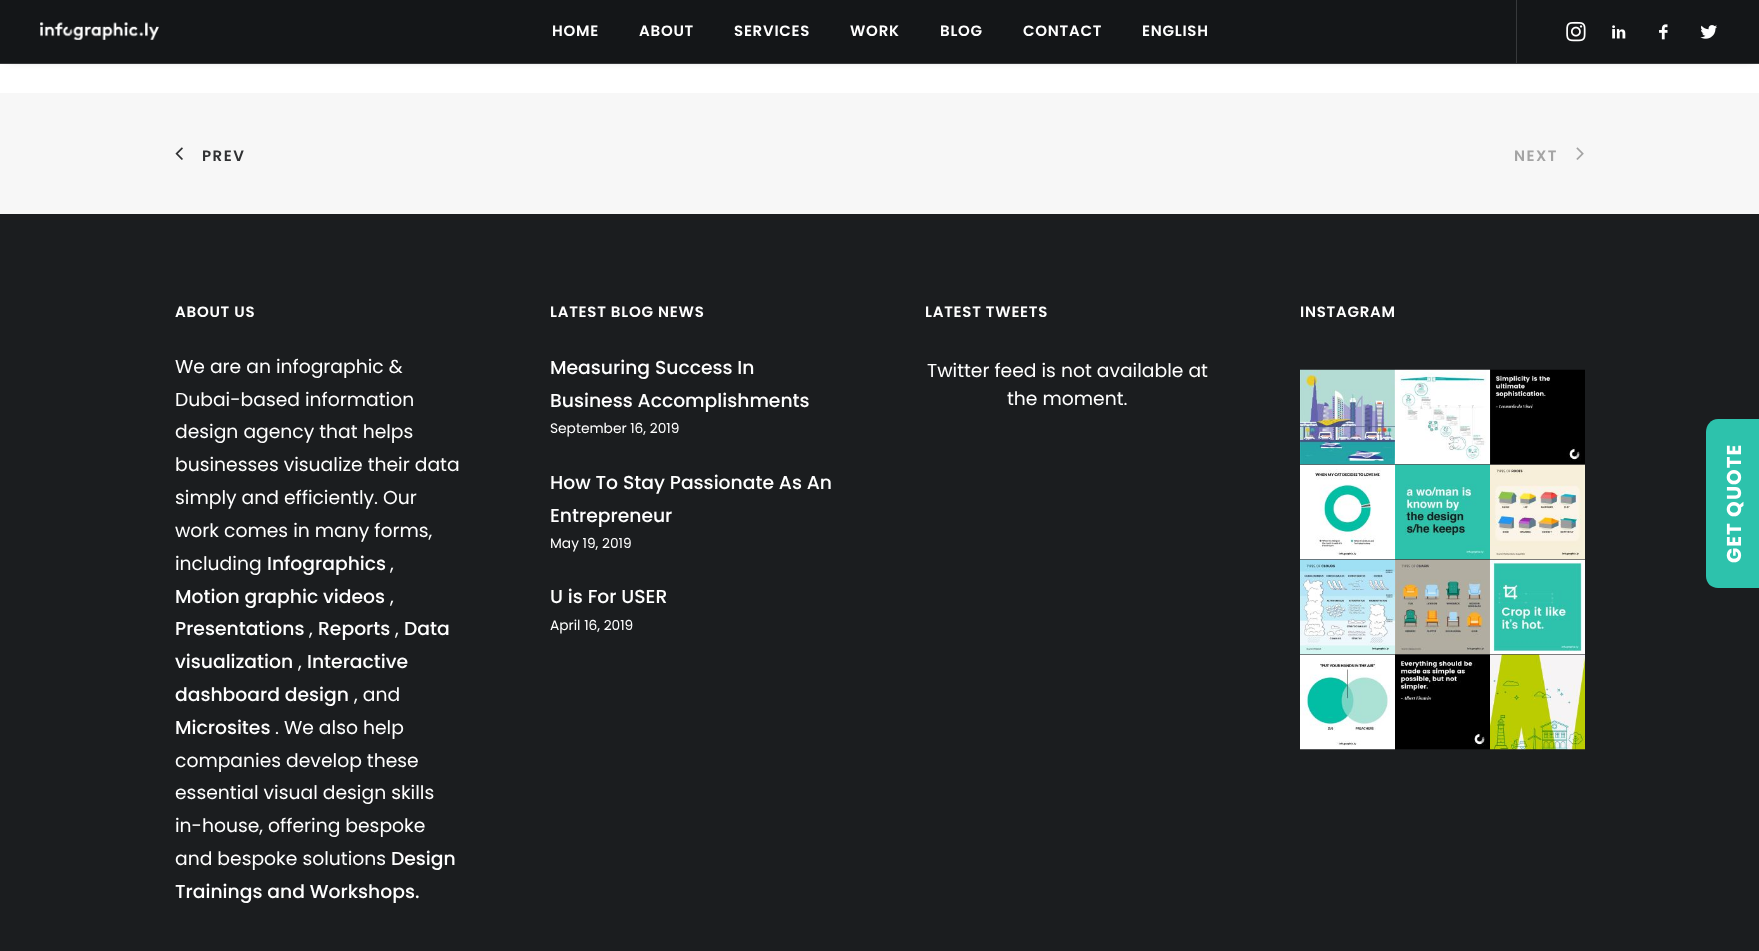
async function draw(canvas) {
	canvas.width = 1759;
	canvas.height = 951;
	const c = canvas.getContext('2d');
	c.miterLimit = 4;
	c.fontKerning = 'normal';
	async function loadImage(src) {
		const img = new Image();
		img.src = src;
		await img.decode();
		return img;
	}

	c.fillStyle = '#fff';
	c.fillRect(0, 0, 1759, 951);
	c.fillStyle = '#00000099';
	c.filter = 'blur(6px)';
	c.beginPath();
	c.rect(8, 18, 1745, 38);
	c.fill();
	c.filter = 'none';
	c.fillStyle = '#141618';
	c.fillRect(0, 0, 1759, 63);
	c.fillStyle = '#37393b';
	c.fillRect(0, 63, 1759, 1);
	c.drawImage(await loadImage('img1.png'), 40, 22, 119, 18);
	c.letterSpacing = '0.75px';
	c.font = '600 15px Poppins';
	c.fillStyle = '#fff';
	for (const [text, x, y] of [
		['HOME', 552, 36],
		['ABOUT', 639, 36],
		['SERVICES', 734, 36],
		['WORK', 850, 36],
		['BLOG', 940, 36],
		['CONTACT', 1023, 36],
		['ENGLISH', 1142, 36],
	]) {
		c.fillText(text, x, y);
	}
	c.fillStyle = '#37393b';
	c.fillRect(1516, 0, 1, 63);
	c.drawImage(await loadImage('img2.png'), 1566, 21, 20, 21);
	c.drawImage(await loadImage('img3.png'), 1612, 25, 14, 14);
	c.drawImage(await loadImage('img4.png'), 1659, 24, 9, 16);
	c.drawImage(await loadImage('img5.png'), 1700, 25, 17, 14);
	c.fillStyle = '#f7f7f7';
	c.fillRect(0, 93, 1759, 121);
	c.drawImage(await loadImage('img6.png'), 175, 147, 8, 13);
	c.letterSpacing = '1.5px';
	c.fillStyle = '#303133';
	c.fillText('PREV', 202, 161);
	c.fillStyle = '#a4a4a4';
	c.fillText('NEXT', 1514, 161);
	c.drawImage(await loadImage('img7.png'), 1576, 147, 8, 13);
	c.fillStyle = '#1b1d1f';
	c.fillRect(0, 214, 1759, 737);
	c.fillStyle = '#2dc2ac';
	c.beginPath();
	c.moveTo(1706, 576);
	c.lineTo(1706, 432);
	c.bezierCurveTo(1706, 425, 1711, 419, 1718, 419);
	c.lineTo(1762, 419);
	c.lineTo(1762, 588);
	c.lineTo(1718, 588);
	c.bezierCurveTo(1711, 588, 1706, 583, 1706, 576);
	c.closePath();
	c.fill();
	c.letterSpacing = '1px';
	c.font = 'bold 20px Poppins';
	c.fillStyle = '#fff';
	c.save();
	c.translate(1741, 563);
	c.rotate(-90 * Math.PI / 180);
	c.fillText('GET QUOTE', 0, 0);
	c.restore();
	c.letterSpacing = '0.75px';
	c.font = '600 15px Poppins';
	c.fillText('ABOUT US', 175, 317);
	c.letterSpacing = '0px';
	c.font = '18.75px Poppins';
	for (const [text, x, y] of [
		['We are an infographic &', 175, 373],
		['Dubai-based information', 175, 406],
		['design agency that helps', 175, 438],
		['businesses visualize their data', 175, 471],
		['simply and efficiently. Our', 175, 504],
		['work comes in many forms,', 175, 537],
		['including', 175, 570],
	]) {
		c.fillText(text, x, y);
	}
	c.font = '500 18.75px Poppins';
	c.fillText('Infographics', 267, 570);
	c.font = '18.75px Poppins';
	c.fillText(',', 390, 570);
	c.font = '500 18.75px Poppins';
	c.fillText('Motion graphic videos', 175, 603);
	c.font = '18.75px Poppins';
	c.fillText(',', 390, 603);
	c.font = '500 18.75px Poppins';
	c.fillText('Presentations', 175, 635);
	c.font = '18.75px Poppins';
	c.fillText(',', 309, 635);
	c.font = '500 18.75px Poppins';
	c.fillText('Reports', 318, 635);
	c.font = '18.75px Poppins';
	c.fillText(',', 395, 635);
	c.font = '500 18.75px Poppins';
	c.fillText('Data', 404, 635);
	c.fillText('visualization', 175, 668);
	c.font = '18.75px Poppins';
	c.fillText(',', 298, 668);
	c.font = '500 18.75px Poppins';
	c.fillText('Interactive', 307, 668);
	c.fillText('dashboard design', 175, 701);
	c.font = '18.75px Poppins';
	c.fillText(', and', 354, 701);
	c.font = '500 18.75px Poppins';
	c.fillText('Microsites', 175, 734);
	c.font = '18.75px Poppins';
	for (const [text, x, y] of [
		['. We also help', 275, 734],
		['companies develop these', 175, 767],
		['essential visual design skills', 175, 799],
		['in-house, offering bespoke', 175, 832],
		['and bespoke solutions', 175, 865],
	]) {
		c.fillText(text, x, y);
	}
	c.font = '500 18.75px Poppins';
	c.fillText('Design', 391, 865);
	c.fillText('Trainings and Workshops.', 175, 898);
	c.letterSpacing = '0.75px';
	c.font = '600 15px Poppins';
	c.fillText('LATEST BLOG NEWS', 550, 317);
	c.letterSpacing = '0px';
	c.font = '500 18.75px Poppins';
	c.fillText('Measuring Success In', 550, 374);
	c.fillText('Business Accomplishments', 550, 407);
	c.font = '13.75px Poppins';
	c.fillText('September 16, 2019', 550, 433);
	c.font = '500 18.75px Poppins';
	c.fillText('How To Stay Passionate As An', 550, 489);
	c.fillText('Entrepreneur', 550, 522);
	c.font = '13.75px Poppins';
	c.fillText('May 19, 2019', 550, 548);
	c.font = '500 18.75px Poppins';
	c.fillText('U is For USER', 550, 603);
	c.font = '13.75px Poppins';
	c.fillText('April 16, 2019', 550, 630);
	c.letterSpacing = '0.75px';
	c.font = '600 15px Poppins';
	c.fillText('LATEST TWEETS', 925, 317);
	c.letterSpacing = '0px';
	c.font = '18.75px Poppins';
	c.fillText('Twitter feed is not available at', 927, 377);
	c.fillText('the moment.', 1007, 405);
	c.letterSpacing = '0.75px';
	c.font = '600 15px Poppins';
	c.fillText('INSTAGRAM', 1300, 317);
	c.drawImage(await loadImage('img8.png'), 1300, 369, 95, 96);
	c.drawImage(await loadImage('img9.png'), 1395, 369, 95, 96);
	c.drawImage(await loadImage('img10.png'), 1490, 369, 95, 96);
	c.drawImage(await loadImage('img11.png'), 1300, 464, 95, 96);
	c.drawImage(await loadImage('img12.png'), 1395, 464, 95, 96);
	c.drawImage(await loadImage('img13.png'), 1490, 464, 95, 96);
	c.drawImage(await loadImage('img14.png'), 1300, 559, 95, 96);
	c.drawImage(await loadImage('img15.png'), 1395, 559, 95, 96);
	c.drawImage(await loadImage('img16.png'), 1490, 559, 95, 96);
	c.drawImage(await loadImage('img17.png'), 1300, 654, 95, 96);
	c.drawImage(await loadImage('img18.png'), 1395, 654, 95, 96);
	c.drawImage(await loadImage('img19.png'), 1490, 654, 95, 96);
}

draw(document.querySelector('canvas'));
